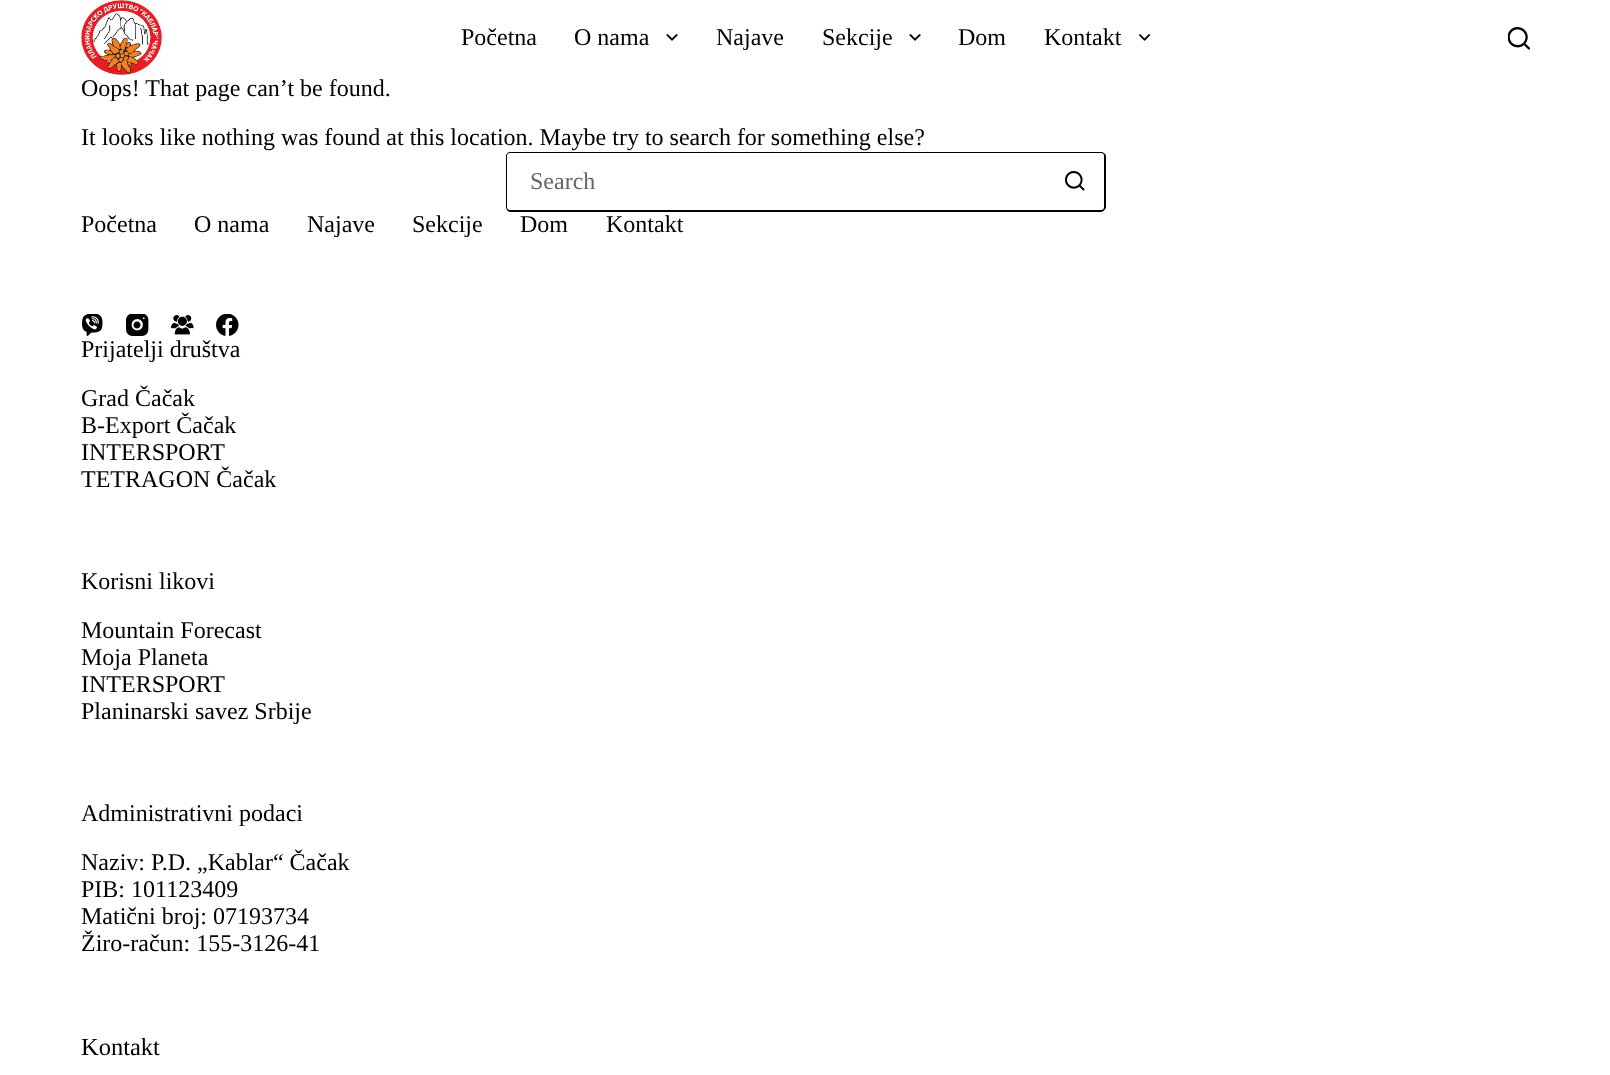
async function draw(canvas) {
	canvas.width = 1610;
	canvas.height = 1075;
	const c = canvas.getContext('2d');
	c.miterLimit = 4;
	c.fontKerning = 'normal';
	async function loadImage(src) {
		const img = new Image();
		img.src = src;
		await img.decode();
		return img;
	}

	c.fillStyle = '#fff';
	c.fillRect(0, 0, 1610, 1075);
	c.drawImage(await loadImage('img1.png'), 81, 0, 81, 75);
	c.font = '24px Liberation Serif';
	c.fillStyle = '#000';
	c.fillText('Početna', 461, 45);
	c.fillText('O nama', 574, 45);
	c.drawImage(await loadImage('img2.png'), 666, 34, 12, 7);
	c.fillText('Najave', 716, 45);
	c.fillText('Sekcije', 822, 45);
	c.drawImage(await loadImage('img2.png'), 909, 34, 12, 7);
	c.fillText('Dom', 958, 45);
	c.fillText('Kontakt', 1044, 45);
	c.drawImage(await loadImage('img3.png'), 1139, 34, 12, 7);
	c.drawImage(await loadImage('img4.png'), 1508, 27, 22, 23);
	c.fillText('Oops! That page can’t be found.', 81, 96);
	c.fillText('It looks like nothing was found at this location. Maybe try to search for something else?', 81, 145);
	c.beginPath();
	c.moveTo(510, 152);
	c.lineTo(1046, 152);
	c.lineTo(1046, 212);
	c.lineTo(510, 212);
	c.bezierCurveTo(508, 212, 506, 209, 506, 207);
	c.lineTo(506, 156);
	c.bezierCurveTo(506, 154, 508, 152, 510, 152);
	c.closePath();
	c.moveTo(510, 153);
	c.lineTo(1046, 153);
	c.lineTo(1046, 210);
	c.lineTo(510, 210);
	c.bezierCurveTo(508, 210, 507, 209, 507, 207);
	c.lineTo(507, 156);
	c.bezierCurveTo(507, 154, 508, 153, 510, 153);
	c.closePath();
	c.fill('evenodd');
	c.fillStyle = '#666';
	c.fillText('Search', 530, 189);
	c.fillStyle = '#000';
	c.beginPath();
	c.moveTo(1046, 152);
	c.lineTo(1101, 152);
	c.bezierCurveTo(1103, 152, 1106, 154, 1106, 156);
	c.lineTo(1106, 207);
	c.bezierCurveTo(1106, 209, 1103, 212, 1101, 212);
	c.lineTo(1046, 212);
	c.closePath();
	c.moveTo(1046, 153);
	c.lineTo(1101, 153);
	c.bezierCurveTo(1103, 153, 1104, 154, 1104, 156);
	c.lineTo(1104, 207);
	c.bezierCurveTo(1104, 209, 1103, 210, 1101, 210);
	c.lineTo(1046, 210);
	c.closePath();
	c.fill('evenodd');
	c.drawImage(await loadImage('img5.png'), 1065, 171, 20, 20);
	for (const [text, x, y] of [
		['Početna', 81, 232],
		['O nama', 194, 232],
		['Najave', 307, 232],
		['Sekcije', 412, 232],
		['Dom', 520, 232],
		['Kontakt', 606, 232],
	]) {
		c.fillText(text, x, y);
	}
	c.drawImage(await loadImage('img6.png'), 81, 314, 22, 22);
	c.drawImage(await loadImage('img7.png'), 126, 314, 23, 22);
	c.drawImage(await loadImage('img8.png'), 171, 315, 23, 20);
	c.drawImage(await loadImage('img9.png'), 216, 314, 23, 22);
	for (const [text, x, y] of [
		['Prijatelji društva', 81, 357],
		['Grad Čačak', 81, 406],
		['B-Export Čačak', 81, 433],
		['INTERSPORT', 81, 460],
		['TETRAGON Čačak', 81, 487],
		['Korisni likovi', 81, 589],
		['Mountain Forecast', 81, 638],
		['Moja Planeta', 81, 665],
		['INTERSPORT', 81, 692],
		['Planinarski savez Srbije', 81, 719],
		['Administrativni podaci', 81, 821],
		['Naziv: P.D. „Kablar“ Čačak', 81, 870],
		['PIB: 101123409', 81, 897],
		['Matični broj: 07193734', 81, 924],
		['Žiro-račun: 155-3126-41', 81, 951],
	]) {
		c.fillText(text, x, y);
	}
	c.font = '24.5px Liberation Serif';
	c.fillText('Kontakt', 81, 1055);
}

draw(document.querySelector('canvas'));
